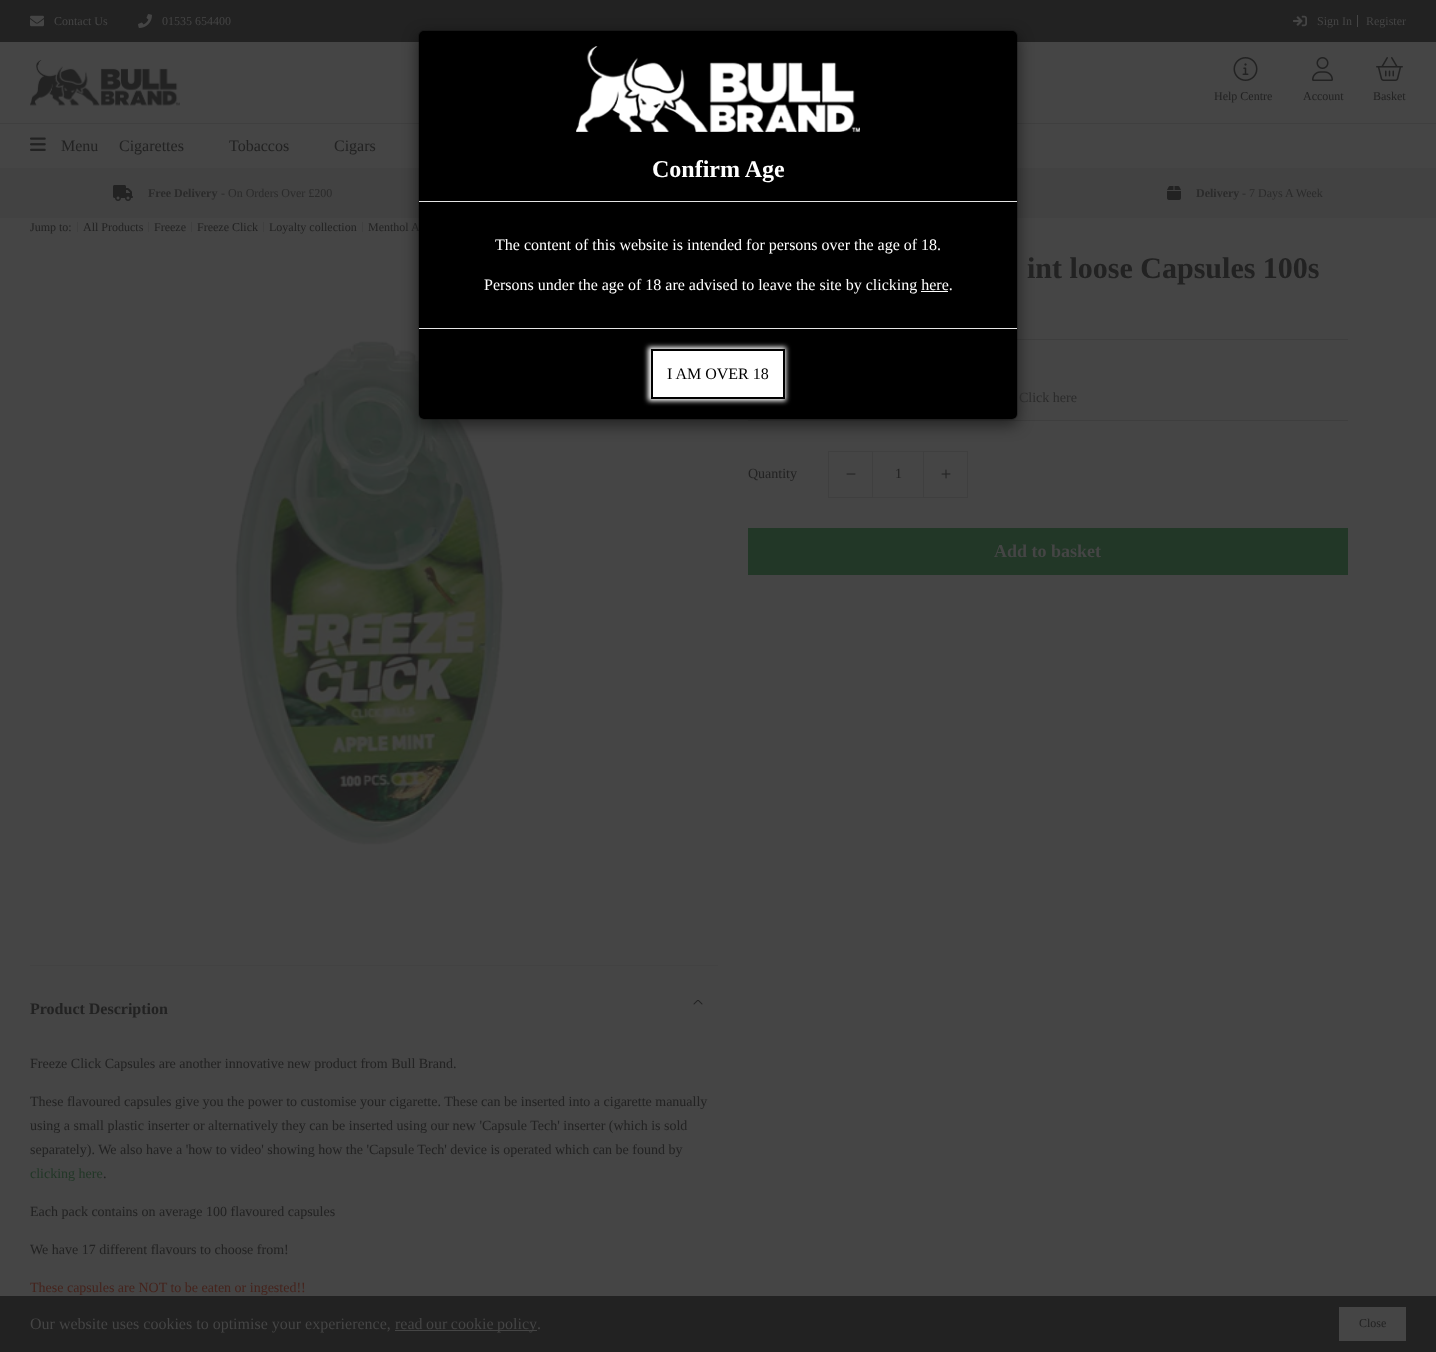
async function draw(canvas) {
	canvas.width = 1436;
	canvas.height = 1352;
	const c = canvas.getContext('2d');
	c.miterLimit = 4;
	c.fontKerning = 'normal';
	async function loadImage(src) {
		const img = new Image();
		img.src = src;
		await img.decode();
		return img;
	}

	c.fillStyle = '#454545';
	c.fillRect(0, 0, 1436, 1352);
	c.fillStyle = '#222';
	c.fillRect(0, 0, 1436, 42);
	c.drawImage(await loadImage('img1.png'), 30, 15, 14, 12);
	c.font = '12px Liberation Serif';
	c.fillStyle = '#454545';
	c.fillText('Contact Us', 54, 25);
	c.drawImage(await loadImage('img2.png'), 138, 14, 14, 14);
	c.fillText('01535 654400', 162, 25);
	c.drawImage(await loadImage('img3.png'), 1293, 15, 14, 12);
	c.fillText('Sign In', 1317, 25);
	c.fillRect(1357, 15, 1, 12);
	c.fillText('Register', 1366, 25);
	c.drawImage(await loadImage('img4.png'), 30, 60, 150, 46);
	c.drawImage(await loadImage('img5.png'), 1233, 57, 25, 24);
	c.fillStyle = '#222';
	c.fillText('Help Centre', 1214, 100);
	c.drawImage(await loadImage('img6.png'), 1312, 57, 21, 24);
	c.fillText('Account', 1303, 100);
	c.drawImage(await loadImage('img7.png'), 1376, 57, 27, 24);
	c.fillText('Basket', 1373, 100);
	c.fillStyle = '#3f3f3f';
	c.fillRect(0, 123, 1436, 1);
	c.drawImage(await loadImage('img8.png'), 30, 137, 16, 14);
	c.font = '16px Liberation Serif';
	c.fillStyle = '#222';
	for (const [text, x, y] of [
		['Menu', 61, 151],
		['Cigarettes', 119, 151],
		['Tobaccos', 229, 151],
		['Cigars', 334, 151],
	]) {
		c.fillText(text, x, y);
	}
	c.fillStyle = '#424242';
	c.fillRect(0, 168, 1436, 50);
	c.drawImage(await loadImage('img9.png'), 113, 185, 20, 16);
	c.font = 'bold 12px Liberation Serif';
	c.fillStyle = '#2b2b2b';
	c.fillText('Free Delivery', 148, 197);
	c.font = '12px Liberation Serif';
	c.fillText('- On Orders Over £200', 221, 197);
	c.drawImage(await loadImage('img10.png'), 1167, 186, 14, 14);
	c.font = 'bold 12px Liberation Serif';
	c.fillText('Delivery', 1196, 197);
	c.font = '12px Liberation Serif';
	c.fillText('- 7 Days A Week', 1242, 197);
	c.fillStyle = '#3e3e3e';
	c.fillRect(1017, 339, 331, 1);
	c.fillRect(748, 420, 600, 1);
	c.drawImage(await loadImage('img14.png'), 235, 340, 270, 507);
	c.fillStyle = '#00000080';
	c.filter = 'blur(7.5px)';
	c.beginPath();
	c.roundRect(418, 35, 600, 390, 6);
	c.fill();
	c.filter = 'none';
	c.fillStyle = '#222';
	c.fillText('Menthol A', 368, 231);
	c.fillStyle = '#000';
	c.beginPath();
	c.roundRect(419, 31, 598, 388, 5);
	c.fill();
	c.beginPath();
	c.roundRect(418.5, 30.5, 599, 389, 5.5);
	c.strokeStyle = '#00000033';
	c.stroke();
	c.fillStyle = '#e5e5e5';
	c.fillRect(419, 201, 598, 1);
	c.drawImage(await loadImage('img11.png'), 576, 46, 284, 86);
	c.font = 'bold 24px Liberation Serif';
	c.fillStyle = '#fff';
	c.fillText('Confirm Age', 652, 177);
	c.font = '16px Liberation Serif';
	c.fillText('The content of this website is intended for persons over the age of 18.', 495, 250);
	c.fillText('Persons under the age of 18 are advised to leave the site by clicking here.', 484, 290);
	c.fillRect(921, 291, 27, 1);
	c.fillStyle = '#e5e5e5';
	c.fillRect(419, 328, 598, 1);
	c.fillStyle = '#fff';
	c.filter = 'blur(2.5px)';
	c.beginPath();
	c.rect(648, 347, 138, 54);
	c.fill();
	c.filter = 'none';
	c.beginPath();
	c.rect(652, 350, 132, 48);
	c.fill();
	c.strokeStyle = '#000';
	c.lineWidth = 2;
	c.stroke();
	c.fillStyle = '#000';
	c.fillText('I AM OVER 18', 667, 379);
	c.font = '12px Liberation Serif';
	c.fillStyle = '#222';
	c.fillText('Jump to:', 30, 231);
	c.fillStyle = '#3f3f3f';
	c.fillRect(77, 222, 1, 10);
	c.fillStyle = '#222';
	c.fillText('All Products', 83, 231);
	c.fillStyle = '#3f3f3f';
	c.fillRect(148, 222, 1, 10);
	c.fillStyle = '#222';
	c.fillText('Freeze', 154, 231);
	c.fillStyle = '#3f3f3f';
	c.fillRect(191, 222, 1, 10);
	c.fillStyle = '#222';
	c.fillText('Freeze Click', 197, 231);
	c.fillStyle = '#3f3f3f';
	c.fillRect(263, 222, 1, 10);
	c.fillStyle = '#222';
	c.fillText('Loyalty collection', 269, 231);
	c.fillStyle = '#3f3f3f';
	c.fillRect(362, 222, 1, 10);
	c.font = 'bold 30px Liberation Serif';
	c.fillStyle = '#222';
	c.fillText('int loose Capsules 100s', 1027, 278);
	c.font = '14px Liberation Serif';
	c.fillStyle = '#2b2b2b';
	c.fillText('Click here', 1019, 402);
	c.fillStyle = '#222';
	c.fillText('Quantity', 748, 478);
	c.strokeStyle = '#3f3f3f';
	c.lineWidth = 1;
	c.strokeRect(828.5, 451.5, 44, 46);
	c.drawImage(await loadImage('img12.png'), 846, 473, 10, 2);
	c.fillStyle = '#404040';
	c.fillRect(873, 451, 50, 1);
	c.fillRect(873, 497, 50, 1);
	c.fillStyle = '#222';
	c.fillText('1', 895, 478);
	c.strokeRect(923.5, 451.5, 44, 46);
	c.drawImage(await loadImage('img13.png'), 941, 469, 10, 10);
	c.fillStyle = '#223727';
	c.fillRect(748, 528, 600, 47);
	c.font = 'bold 18px Liberation Serif';
	c.fillStyle = '#454545';
	c.fillText('Add to basket', 994, 557);
	c.fillStyle = '#424242';
	c.fillRect(30, 965, 688, 1);
	c.font = 'bold 16px Liberation Serif';
	c.fillStyle = '#222';
	c.fillText('Product Description', 30, 1014);
	c.drawImage(await loadImage('img15.png'), 693, 1000, 10, 5);
	c.font = '14px Liberation Serif';
	for (const [text, x, y] of [
		['Freeze Click Capsules are another innovative new product from Bull Brand.', 30, 1068],
		['These flavoured capsules give you the power to customise your cigarette. These can be inserted into a cigarette manually', 30, 1106],
		['using a small plastic inserter or alternatively they can be inserted using our new \'Capsule Tech\' inserter (which is sold', 30, 1130],
		['separately). We also have a \'how to video\' showing how the \'Capsule Tech\' device is operated which can be found by', 30, 1154],
	]) {
		c.fillText(text, x, y);
	}
	c.fillStyle = '#223727';
	c.fillText('clicking here', 30, 1178);
	c.fillStyle = '#222';
	for (const [text, x, y] of [
		['.', 103, 1178],
		['Each pack contains on average 100 flavoured capsules', 30, 1216],
		['We have 17 different flavours to choose from!', 30, 1254],
	]) {
		c.fillText(text, x, y);
	}
	c.fillStyle = '#45231c';
	c.fillText('These capsules are NOT to be eaten or ingested!!', 30, 1292);
	c.fillStyle = '#222';
	c.fillRect(0, 1296, 1436, 56);
	c.font = '16px Liberation Serif';
	c.fillStyle = '#454545';
	c.fillText('Our website uses cookies to optimise your experierence,', 30, 1329);
	c.fillRect(395, 1330, 142, 1);
	c.wordSpacing = '-0.5px';
	c.fillText('read our cookie policy', 395, 1329);
	c.wordSpacing = '0px';
	c.fillText('.', 537, 1329);
	c.fillRect(1339, 1307, 67, 34);
	c.font = '12px Liberation Serif';
	c.fillStyle = '#222';
	c.fillText('Close', 1359, 1327);
}

draw(document.querySelector('canvas'));
